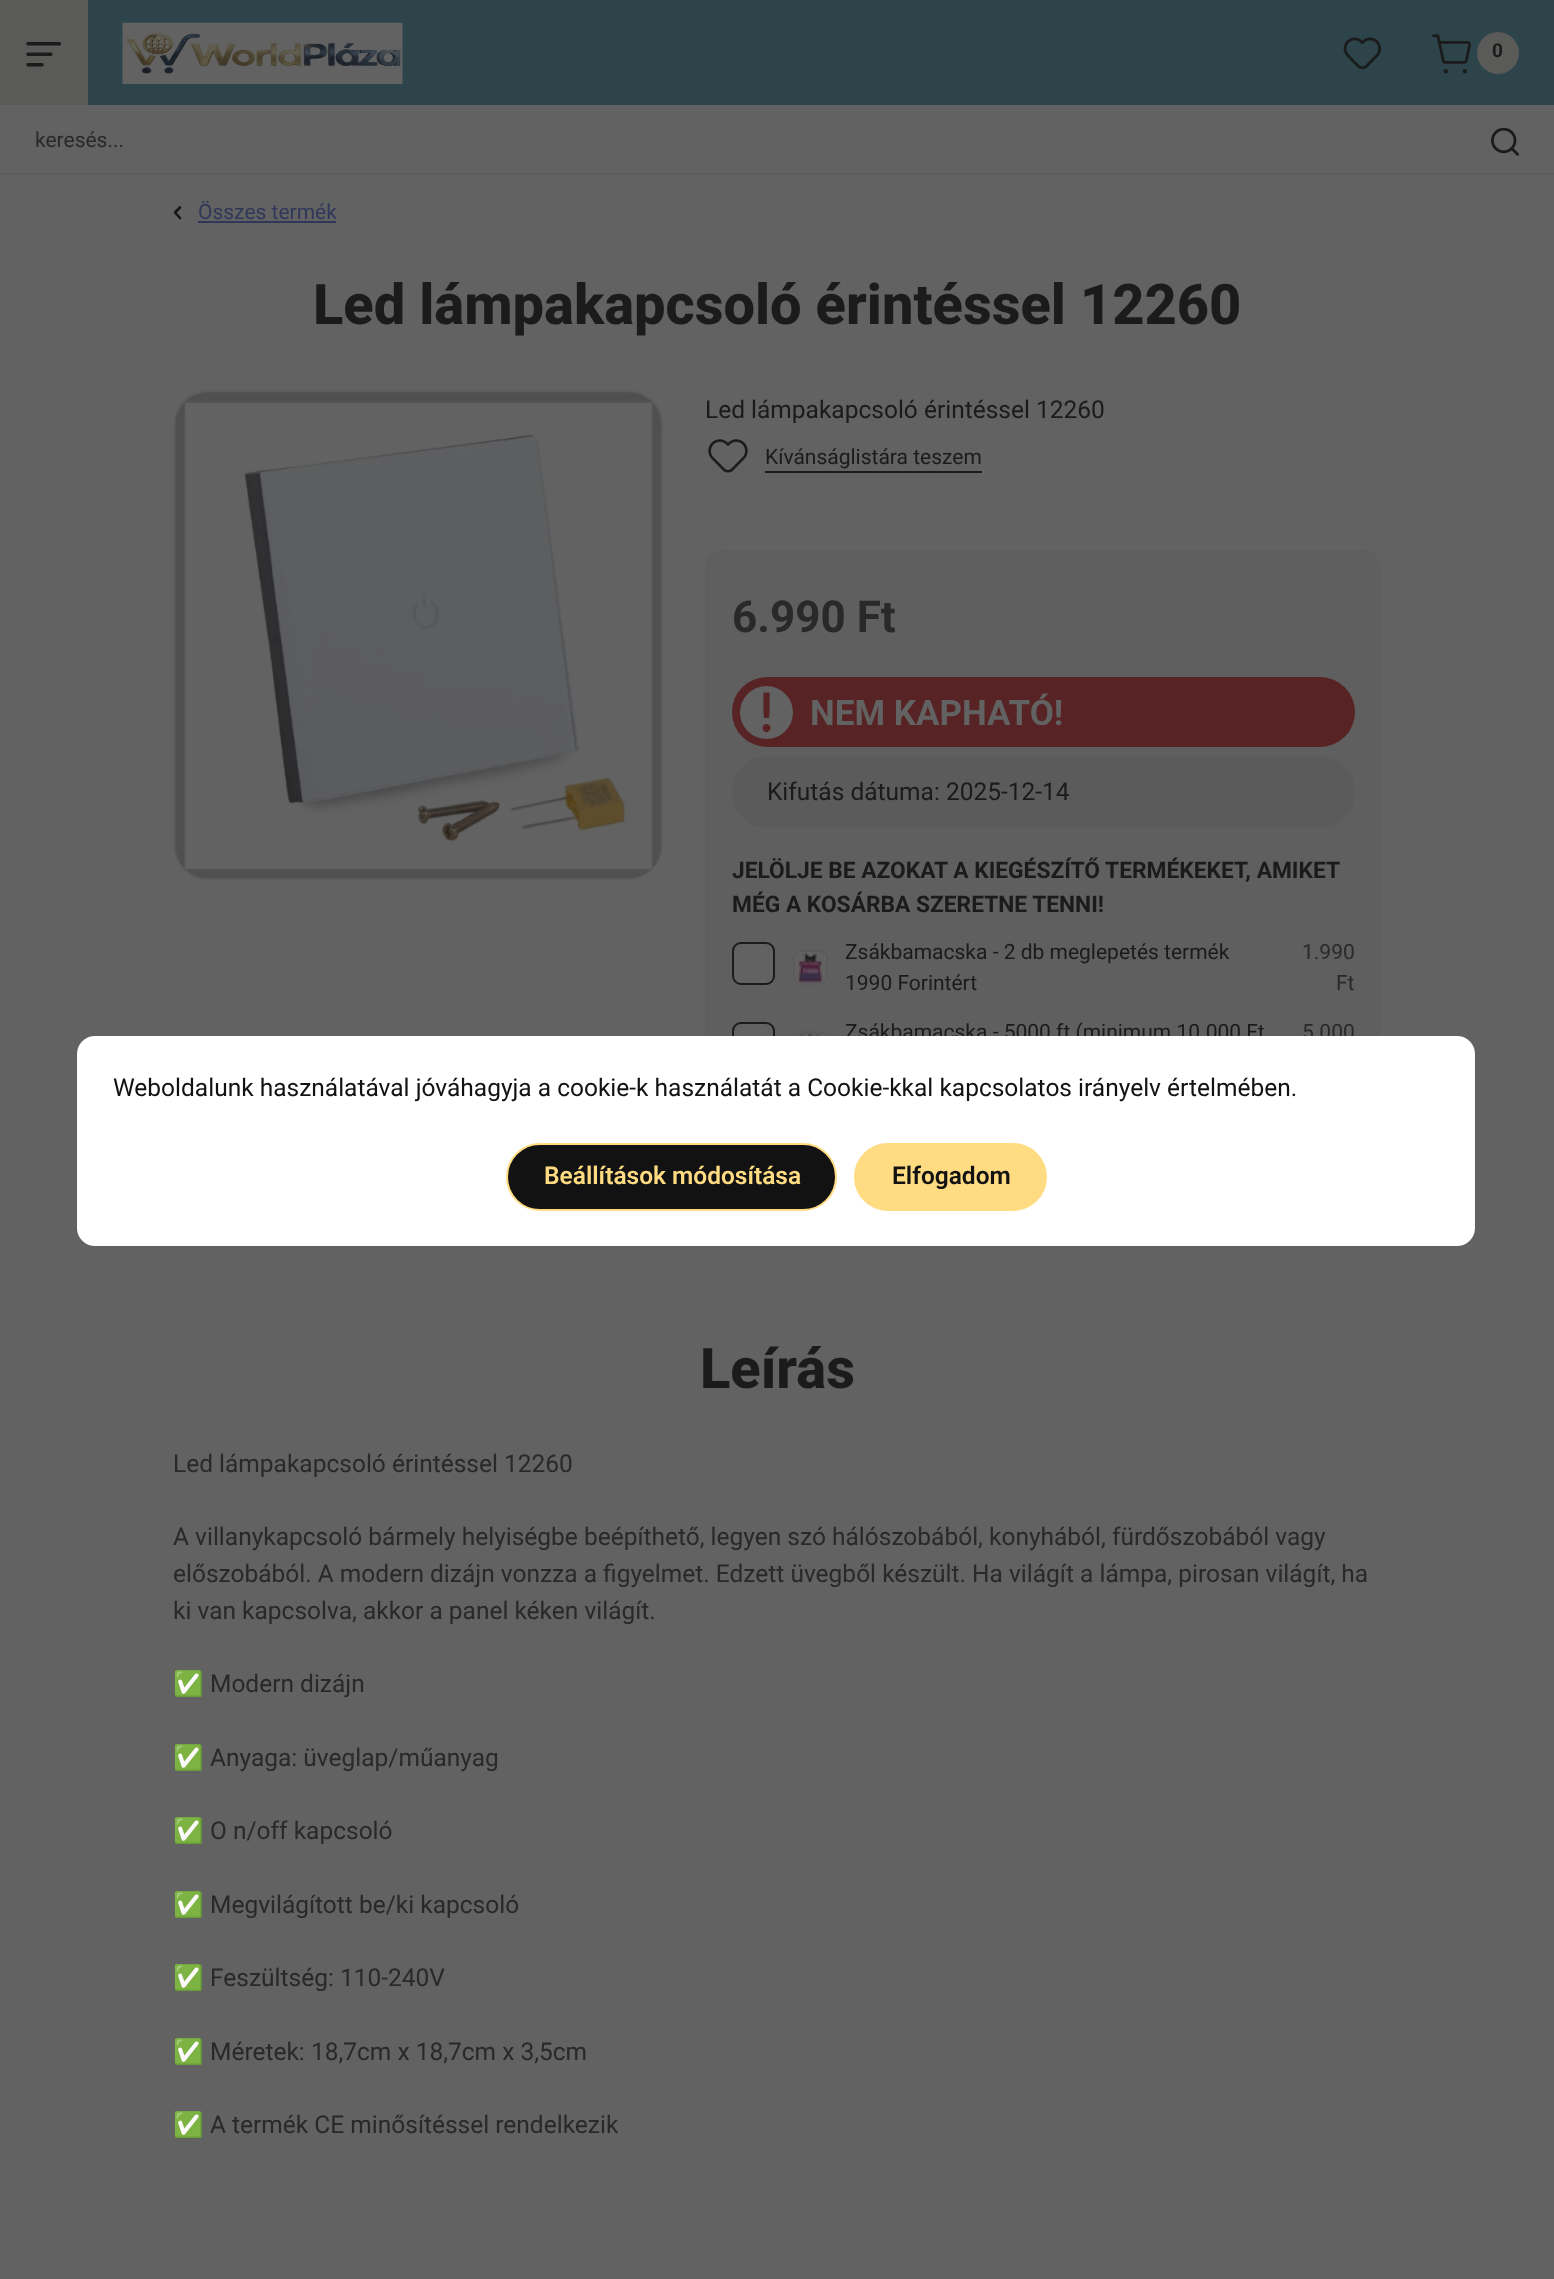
async function draw(canvas) {
	canvas.width = 1554;
	canvas.height = 2279;
	const c = canvas.getContext('2d');
	c.miterLimit = 4;
	c.fontKerning = 'normal';
	async function loadImage(src) {
		const img = new Image();
		img.src = src;
		await img.decode();
		return img;
	}

	c.fillStyle = '#626262';
	c.fillRect(0, 0, 1554, 2279);
	c.fillStyle = '#2d444b';
	c.fillRect(88, 0, 1466, 105);
	c.fillStyle = '#5a5a58';
	c.fillRect(0, 0, 88, 105);
	c.drawImage(await loadImage('img1.png'), 26, 42, 35, 25);
	c.drawImage(await loadImage('img2.png'), 122, 22, 281, 62);
	c.drawImage(await loadImage('img3.png'), 1343, 37, 39, 33);
	c.drawImage(await loadImage('img4.png'), 1432, 34, 39, 40);
	c.beginPath();
	c.arc(1498, 53, 21, 0, 2 * Math.PI);
	c.fill();
	c.font = 'bold 19px Roboto';
	c.fillStyle = '#1b1b1b';
	c.fillText('0', 1492, 57);
	c.fillStyle = '#5e5e5e';
	c.fillRect(0, 173, 1554, 2);
	c.font = '21px Roboto';
	c.fillStyle = '#2a292a';
	c.fillText('keresés...', 35, 147);
	c.drawImage(await loadImage('img5.png'), 1491, 128, 28, 28);
	c.beginPath();
	c.moveTo(180, 218);
	c.lineTo(175, 212.5);
	c.lineTo(180, 207.5);
	c.strokeStyle = '#161616';
	c.lineWidth = 2.6;
	c.lineCap = 'round';
	c.lineJoin = 'round';
	c.stroke();
	c.fillStyle = '#30385a';
	c.fillText('Összes termék', 198, 219);
	c.fillRect(198, 221, 138, 2);
	c.font = '800 56px Roboto';
	c.fillStyle = '#1b1b1b';
	c.fillText('Led lámpakapcsoló érintéssel 12260', 313, 324);
	c.beginPath();
	c.roundRect(174, 391, 488, 488, 34);
	c.strokeStyle = '#5e5e5e';
	c.lineWidth = 2;
	c.lineJoin = 'miter';
	c.stroke();
	c.drawImage(await loadImage('img6.png'), 175, 392, 487, 487);
	c.font = '24.5px Roboto';
	c.fillText('Led lámpakapcsoló érintéssel 12260', 705, 418);
	c.drawImage(await loadImage('img7.png'), 708, 439, 40, 34);
	c.font = '21px Roboto';
	c.fillText('Kívánságlistára teszem', 765, 464);
	c.fillRect(765, 471, 217, 2);
	c.fillStyle = '#5f5f5f';
	c.beginPath();
	c.roundRect(705, 550, 676, 645, 18);
	c.fill();
	c.font = 'bold 44px Roboto';
	c.fillStyle = '#2a292a';
	c.fillText('6.990 Ft', 732, 632);
	c.fillStyle = '#572324';
	c.beginPath();
	c.roundRect(732, 677, 623, 70, 35);
	c.fill();
	c.fillStyle = '#626262';
	c.beginPath();
	c.arc(766.5, 712.5, 26.5, 0, 2 * Math.PI);
	c.fill();
	c.fillStyle = '#572324';
	c.beginPath();
	c.moveTo(769.5, 692.5);
	c.bezierCurveTo(769.5, 701, 770, 709.5, 769, 718);
	c.lineTo(764, 718);
	c.bezierCurveTo(763, 709.5, 763.5, 701, 763.5, 692.5);
	c.closePath();
	c.moveTo(762.5, 728);
	c.bezierCurveTo(762.5, 722.5, 770.5, 722.5, 770.5, 728);
	c.bezierCurveTo(770.5, 733.5, 762.5, 733.5, 762.5, 728);
	c.closePath();
	c.fill();
	c.font = 'bold 35px Roboto';
	c.fillStyle = '#626262';
	c.fillText('NEM KAPHATÓ!', 810, 725);
	c.fillStyle = '#5b5b5b';
	c.beginPath();
	c.roundRect(732, 756, 623, 72, 36);
	c.fill();
	c.font = '24.5px Roboto';
	c.fillStyle = '#1b1b1b';
	c.fillText('Kifutás dátuma: 2025-12-14', 767, 800);
	c.font = 'bold 22.75px Roboto';
	c.fillText('JELÖLJE BE AZOKAT A KIEGÉSZÍTŐ TERMÉKEKET, AMIKET', 732, 878);
	c.fillText('MÉG A KOSÁRBA SZERETNE TENNI!', 732, 912);
	c.fillStyle = '#626262';
	c.beginPath();
	c.roundRect(733, 943, 41, 41, 8);
	c.fill();
	c.strokeStyle = '#1b1b1b';
	c.stroke();
	c.beginPath();
	c.roundRect(794, 951, 33, 33, 8);
	c.strokeStyle = '#5b5b5b';
	c.stroke();
	c.drawImage(await loadImage('img8.png'), 794, 952, 32, 32);
	c.font = '21px Roboto';
	c.fillStyle = '#1b1b1b';
	c.fillText('Zsákbamacska - 2 db meglepetés termék', 845, 959);
	c.fillText('1990 Forintért', 845, 990);
	c.fillStyle = '#2a292a';
	c.fillText('1.990', 1302, 959);
	c.fillText('Ft', 1336, 990);
	c.fillStyle = '#626262';
	c.beginPath();
	c.roundRect(733, 1023, 41, 42, 8);
	c.fill();
	c.strokeStyle = '#1b1b1b';
	c.stroke();
	c.beginPath();
	c.roundRect(794, 1032, 33, 33, 8);
	c.strokeStyle = '#5b5b5b';
	c.stroke();
	c.drawImage(await loadImage('img9.png'), 795, 1033, 30, 3);
	c.fillStyle = '#1b1b1b';
	c.fillText('Zsákbamacska - 5000 ft (minimum 10.000 Ft', 845, 1039);
	c.fillStyle = '#2a292a';
	c.fillText('5.000', 1302, 1039);
	c.font = '800 56px Roboto';
	c.fillStyle = '#1b1b1b';
	c.fillText('Leírás', 700, 1388);
	c.font = '24.5px Roboto';
	c.fillStyle = '#2a292a';
	for (const [text, x, y] of [
		['Led lámpakapcsoló érintéssel 12260', 173, 1472],
		['A villanykapcsoló bármely helyiségbe beépíthető, legyen szó hálószobából, konyhából, fürdőszobából vagy', 173, 1545],
		['előszobából. A modern dizájn vonzza a figyelmet. Edzett üvegből készült. Ha világít a lámpa, pirosan világít, ha', 173, 1582],
		['ki van kapcsolva, akkor a panel kéken világít.', 173, 1619],
	]) {
		c.fillText(text, x, y);
	}
	c.font = '24.5px Noto Color Emoji';
	c.fillText('✅', 173, 1692);
	c.font = '24.5px Roboto';
	c.fillText('Modern dizájn', 210, 1692);
	c.font = '24.5px Noto Color Emoji';
	c.fillText('✅', 173, 1766);
	c.font = '24.5px Roboto';
	c.fillText('Anyaga: üveglap/műanyag', 210, 1766);
	c.font = '24.5px Noto Color Emoji';
	c.fillText('✅', 173, 1839);
	c.font = '24.5px Roboto';
	c.fillText('O n/off kapcsoló', 210, 1839);
	c.font = '24.5px Noto Color Emoji';
	c.fillText('✅', 173, 1913);
	c.font = '24.5px Roboto';
	c.fillText('Megvilágított be/ki kapcsoló', 210, 1913);
	c.font = '24.5px Noto Color Emoji';
	c.fillText('✅', 173, 1986);
	c.font = '24.5px Roboto';
	c.fillText('Feszültség: 110-240V', 210, 1986);
	c.font = '24.5px Noto Color Emoji';
	c.fillText('✅', 173, 2060);
	c.font = '24.5px Roboto';
	c.fillText('Méretek: 18,7cm x 18,7cm x 3,5cm', 210, 2060);
	c.font = '24.5px Noto Color Emoji';
	c.fillText('✅', 173, 2133);
	c.font = '24.5px Roboto';
	c.fillText('A termék CE minősítéssel rendelkezik', 210, 2133);
	c.fillStyle = '#fff';
	c.beginPath();
	c.roundRect(77, 1036, 1398, 210, 18);
	c.fill();
	c.fillStyle = '#121212';
	c.fillText('Weboldalunk használatával jóváhagyja a cookie-k használatát a Cookie-kkal kapcsolatos irányelv értelmében.', 113, 1096);
	c.beginPath();
	c.roundRect(507, 1144, 329, 66, 33);
	c.fill();
	c.strokeStyle = '#ffdc82';
	c.stroke();
	c.font = '600 24.5px Roboto';
	c.fillStyle = '#ffdc82';
	c.fillText('Beállítások módosítása', 544, 1184);
	c.beginPath();
	c.roundRect(855, 1144, 191, 66, 33);
	c.fill();
	c.stroke();
	c.fillStyle = '#121212';
	c.fillText('Elfogadom', 892, 1184);
}

draw(document.querySelector('canvas'));
